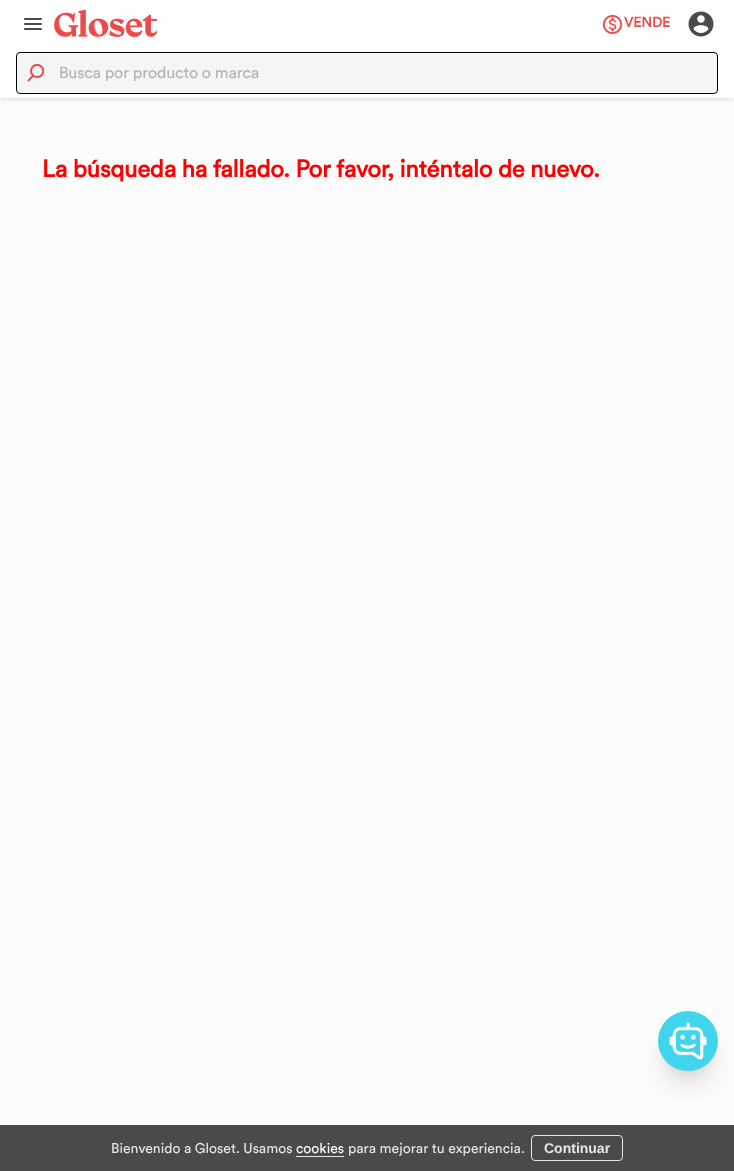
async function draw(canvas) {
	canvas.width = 734;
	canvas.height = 1171;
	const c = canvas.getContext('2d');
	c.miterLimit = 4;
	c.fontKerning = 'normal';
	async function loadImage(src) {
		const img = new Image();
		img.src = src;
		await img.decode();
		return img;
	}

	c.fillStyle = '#fcfcfc';
	c.fillRect(0, 0, 734, 1171);
	c.fillStyle = '#fff';
	c.fillRect(0, 0, 734, 98);
	c.fillStyle = '#4a4a4a';
	c.beginPath();
	c.roundRect(24, 18, 18, 2, 1);
	c.fill();
	c.beginPath();
	c.roundRect(24, 23, 18, 2, 1);
	c.fill();
	c.beginPath();
	c.roundRect(24, 28, 18, 2, 1);
	c.fill();
	c.drawImage(await loadImage('img1.png'), 54, 10, 104, 27);
	c.drawImage(await loadImage('img2.png'), 602, 14, 21, 21);
	c.font = 'bold 14px Circular';
	c.fillStyle = '#eb4c4b';
	c.fillText('VENDE', 624, 27);
	c.drawImage(await loadImage('img3.png'), 688, 11, 26, 26);
	c.save();
	c.beginPath();
	c.rect(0, 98, 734, 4);
	c.clip();
	c.fillStyle = '#0000001a';
	c.filter = 'blur(2px)';
	c.beginPath();
	c.rect(0, 50, 734, 50);
	c.fill();
	c.filter = 'none';
	c.restore();
	c.fillStyle = '#f5f5f5';
	c.beginPath();
	c.roundRect(16.5, 52.5, 701, 41, 3.5);
	c.fill();
	c.strokeStyle = '#000';
	c.stroke();
	c.drawImage(await loadImage('img4.png'), 27, 63, 17, 19);
	c.letterSpacing = '-0.1px';
	c.font = '16px Circular';
	c.fillStyle = '#b2b2b2';
	c.fillText('Busca por producto o marca', 59, 78);
	c.letterSpacing = '-0.3px';
	c.font = 'bold 24px Circular';
	c.fillStyle = '#f00';
	c.fillText('La búsqueda ha fallado. Por favor, inténtalo de nuevo.', 42, 177);
	c.fillStyle = '#4a4a4a';
	c.fillRect(0, 1125, 734, 46);
	c.letterSpacing = '0px';
	c.font = '14px Circular';
	c.fillStyle = '#e7e7e7';
	c.fillText('Bienvenido a Gloset. Usamos', 111, 1153);
	c.fillStyle = '#fff';
	c.fillText('cookies', 296, 1153);
	c.fillStyle = '#e7e7e7';
	c.fillRect(296, 1156, 48, 1);
	c.fillText('para mejorar tu experiencia.', 348, 1153);
	c.beginPath();
	c.roundRect(531.5, 1135.5, 91, 25, 3.5);
	c.strokeStyle = '#e7e7e7';
	c.stroke();
	c.font = 'bold 14px Liberation Sans';
	c.fillText('Continuar', 544, 1153);
	c.fillStyle = '#0000001a';
	c.filter = 'blur(5px)';
	c.beginPath();
	c.roundRect(664, 1025, 48, 48, 24);
	c.fill();
	c.filter = 'none';
	c.filter = 'blur(12.5px)';
	c.beginPath();
	c.roundRect(663, 1036, 50, 50, 25);
	c.fill();
	c.filter = 'none';
	c.fillStyle = '#40d5ec';
	c.beginPath();
	c.arc(688, 1041, 30, 0, 2 * Math.PI);
	c.fill();
	c.drawImage(await loadImage('img5.png'), 669, 1022, 38, 38);
}

draw(document.querySelector('canvas'));
